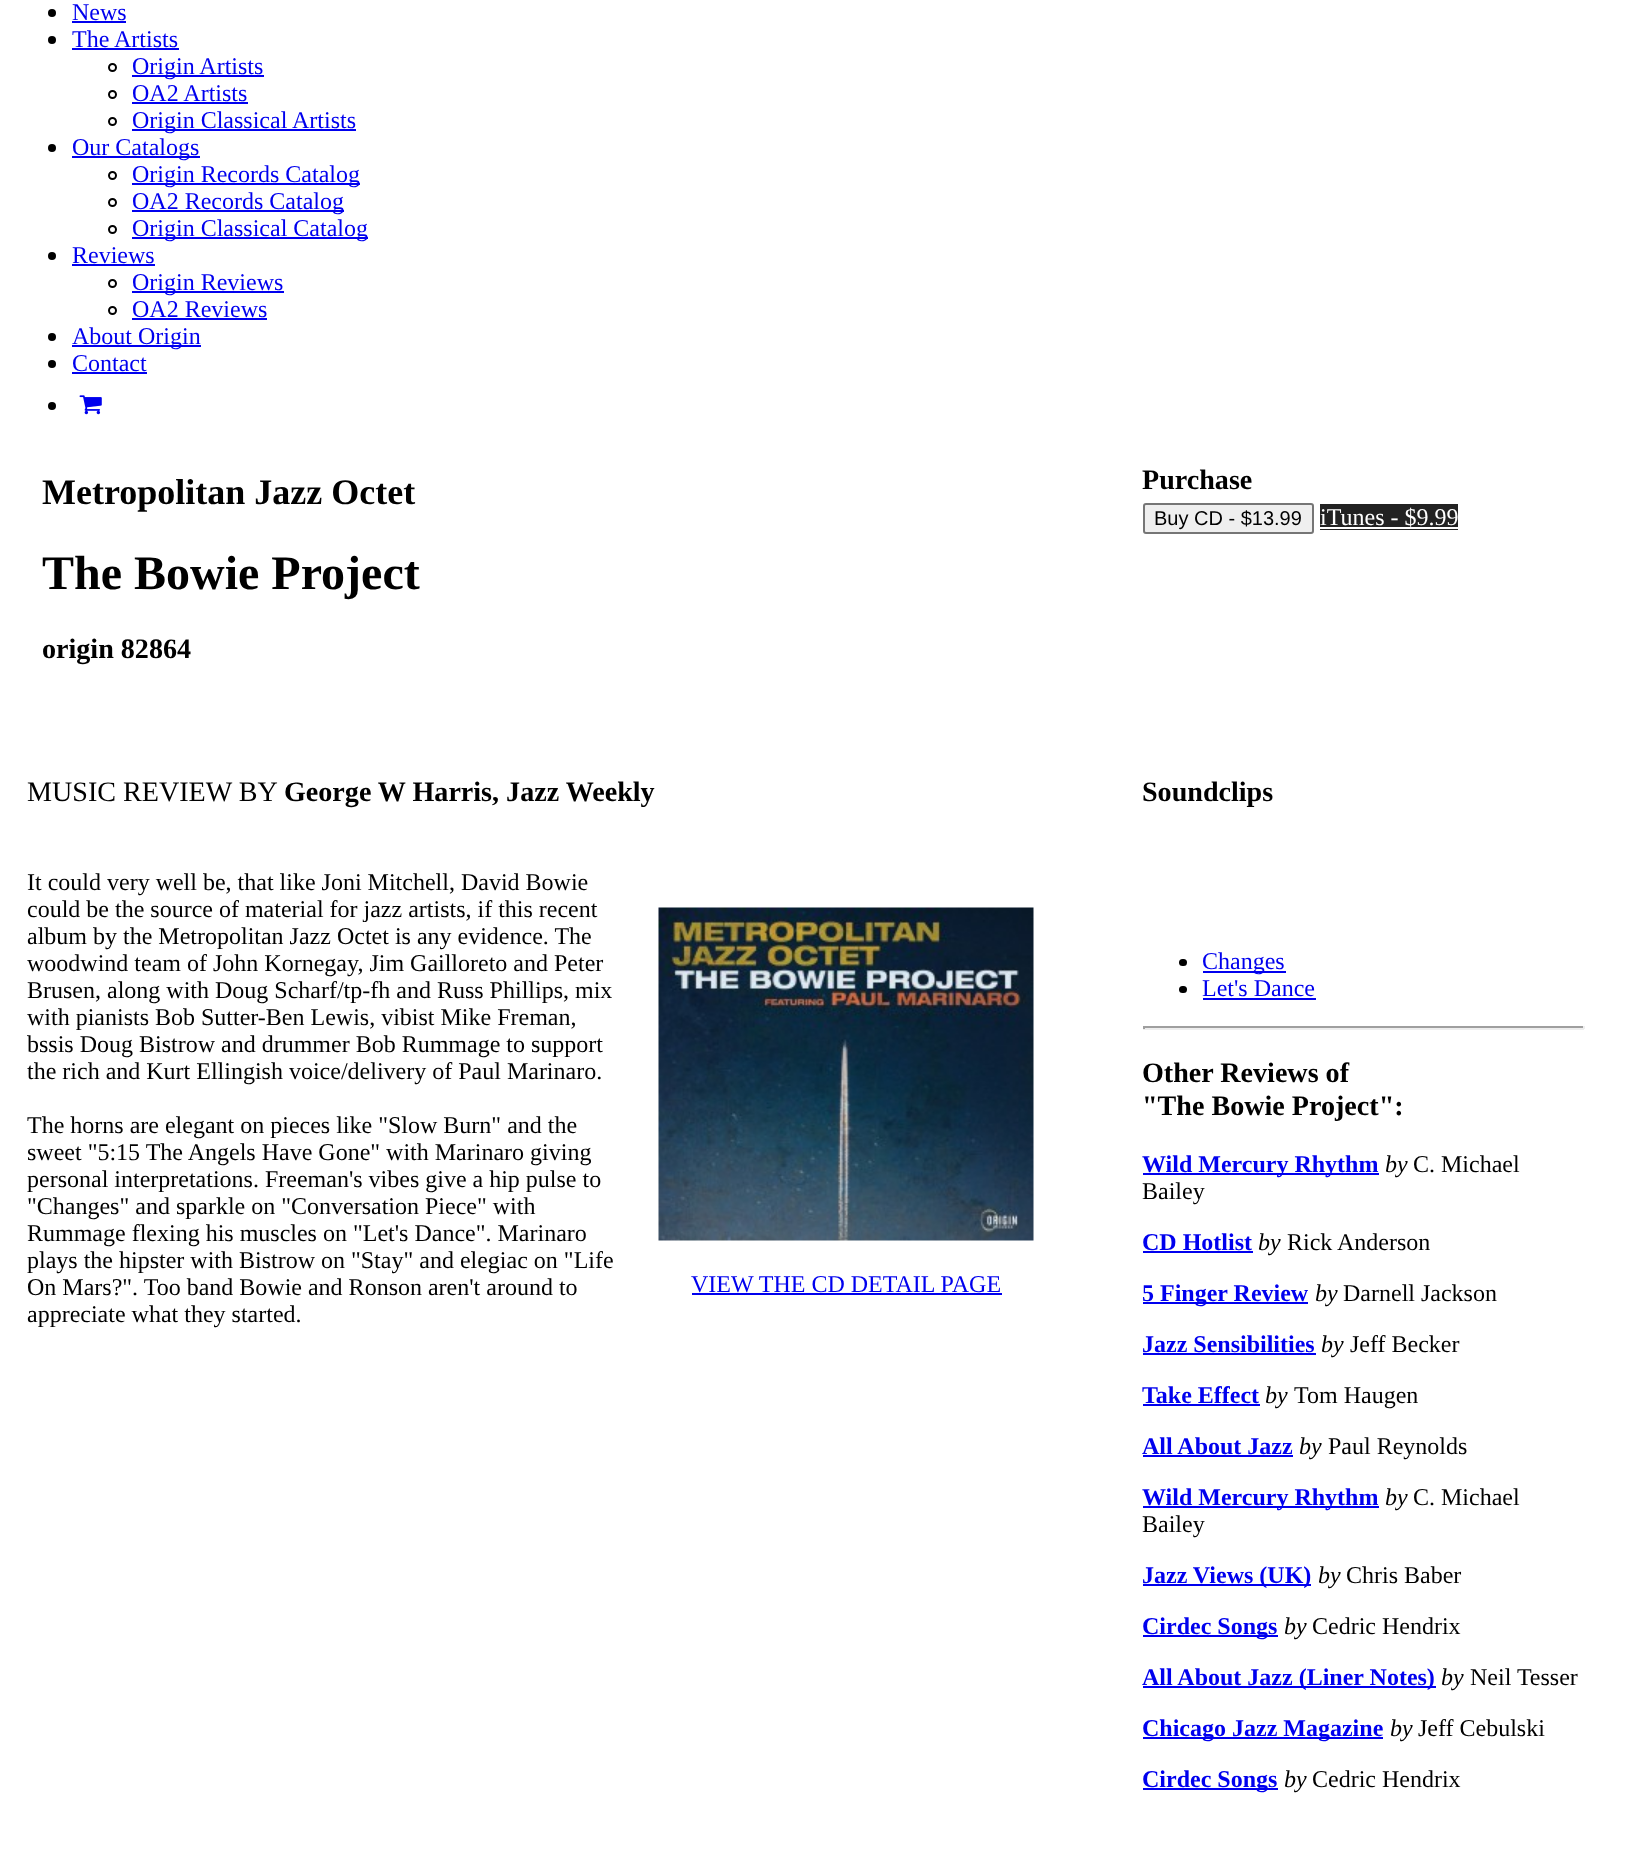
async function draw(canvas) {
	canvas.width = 1626;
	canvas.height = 1872;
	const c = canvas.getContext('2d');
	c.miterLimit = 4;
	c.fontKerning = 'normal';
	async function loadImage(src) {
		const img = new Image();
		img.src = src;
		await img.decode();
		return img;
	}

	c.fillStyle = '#fff';
	c.fillRect(0, 0, 1626, 1872);
	c.fillStyle = '#000';
	c.beginPath();
	c.arc(52, 13, 4, 0, 2 * Math.PI);
	c.fill();
	c.font = '24px Liberation Serif';
	c.fillStyle = '#00e';
	c.fillText('News', 72, 20);
	c.fillRect(72, 21, 54, 2);
	c.fillStyle = '#000';
	c.beginPath();
	c.arc(52, 40, 4, 0, 2 * Math.PI);
	c.fill();
	c.fillStyle = '#00e';
	c.fillText('The Artists', 72, 47);
	c.fillRect(72, 48, 107, 2);
	c.beginPath();
	c.arc(112.5, 67.5, 3.5, 0, 2 * Math.PI);
	c.strokeStyle = '#000';
	c.lineWidth = 2;
	c.stroke();
	c.fillRect(132, 75, 132, 2);
	c.fillText('Origin Artists', 132, 74);
	c.beginPath();
	c.arc(112.5, 94.5, 3.5, 0, 2 * Math.PI);
	c.stroke();
	c.fillText('OA2 Artists', 132, 101);
	c.fillRect(132, 102, 116, 2);
	c.beginPath();
	c.arc(112.5, 121.5, 3.5, 0, 2 * Math.PI);
	c.stroke();
	c.fillRect(132, 129, 224, 2);
	c.fillText('Origin Classical Artists', 132, 128);
	c.fillStyle = '#000';
	c.beginPath();
	c.arc(52, 148, 4, 0, 2 * Math.PI);
	c.fill();
	c.fillStyle = '#00e';
	c.fillRect(72, 156, 128, 2);
	c.fillText('Our Catalogs', 72, 155);
	c.beginPath();
	c.arc(112.5, 175.5, 3.5, 0, 2 * Math.PI);
	c.stroke();
	c.fillRect(132, 183, 228, 2);
	c.fillText('Origin Records Catalog', 132, 182);
	c.beginPath();
	c.arc(112.5, 202.5, 3.5, 0, 2 * Math.PI);
	c.stroke();
	c.fillRect(132, 210, 212, 2);
	c.fillText('OA2 Records Catalog', 132, 209);
	c.beginPath();
	c.arc(112.5, 229.5, 3.5, 0, 2 * Math.PI);
	c.stroke();
	c.fillRect(132, 237, 236, 2);
	c.fillText('Origin Classical Catalog', 132, 236);
	c.fillStyle = '#000';
	c.beginPath();
	c.arc(52, 256, 4, 0, 2 * Math.PI);
	c.fill();
	c.fillStyle = '#00e';
	c.fillText('Reviews', 72, 263);
	c.fillRect(72, 264, 83, 2);
	c.beginPath();
	c.arc(112.5, 283.5, 3.5, 0, 2 * Math.PI);
	c.stroke();
	c.fillRect(132, 291, 152, 2);
	c.fillText('Origin Reviews', 132, 290);
	c.beginPath();
	c.arc(112.5, 310.5, 3.5, 0, 2 * Math.PI);
	c.stroke();
	c.fillText('OA2 Reviews', 132, 317);
	c.fillRect(132, 318, 135, 2);
	c.fillStyle = '#000';
	c.beginPath();
	c.arc(52, 337, 4, 0, 2 * Math.PI);
	c.fill();
	c.fillStyle = '#00e';
	c.fillRect(72, 345, 129, 2);
	c.fillText('About Origin', 72, 344);
	c.fillStyle = '#000';
	c.beginPath();
	c.arc(52, 364, 4, 0, 2 * Math.PI);
	c.fill();
	c.fillStyle = '#00e';
	c.fillText('Contact', 72, 371);
	c.fillRect(72, 372, 75, 2);
	c.fillStyle = '#000';
	c.beginPath();
	c.arc(52, 406, 4, 0, 2 * Math.PI);
	c.fill();
	c.drawImage(await loadImage('img1.png'), 79, 395, 23, 20);
	c.font = 'bold 36px Liberation Serif';
	c.fillText('Metropolitan Jazz Octet', 42, 504);
	c.font = 'bold 48px Liberation Serif';
	c.fillText('The Bowie Project', 42, 589);
	c.font = 'bold 28.1px Liberation Serif';
	c.fillText('origin 82864', 42, 658);
	c.fillText('Purchase', 1142, 489);
	c.fillStyle = '#efefef';
	c.beginPath();
	c.roundRect(1144, 504, 169, 29, 2);
	c.fill();
	c.strokeStyle = '#767676';
	c.stroke();
	c.font = '20px Liberation Sans';
	c.fillStyle = '#000';
	c.fillText('Buy CD - $13.99', 1154, 525);
	c.fillStyle = '#222';
	c.fillRect(1320, 504, 138, 26);
	c.font = '24px Liberation Serif';
	c.fillStyle = '#fff';
	c.fillText('iTunes - $9.99', 1320, 525);
	c.fillRect(1320, 527, 138, 2);
	c.font = '28.1px Liberation Serif';
	c.fillStyle = '#000';
	c.fillText('MUSIC REVIEW BY', 27, 801);
	c.font = 'bold 28.1px Liberation Serif';
	c.fillText('George W Harris, Jazz Weekly', 284, 801);
	c.font = '24px Liberation Serif';
	for (const [text, x, y] of [
		['It could very well be, that like Joni Mitchell, David Bowie', 27, 890],
		['could be the source of material for jazz artists, if this recent', 27, 917],
		['album by the Metropolitan Jazz Octet is any evidence. The', 27, 944],
		['woodwind team of John Kornegay, Jim Gailloreto and Peter', 27, 971],
		['Brusen, along with Doug Scharf/tp-fh and Russ Phillips, mix', 27, 998],
		['with pianists Bob Sutter-Ben Lewis, vibist Mike Freman,', 27, 1025],
		['bssis Doug Bistrow and drummer Bob Rummage to support', 27, 1052],
		['the rich and Kurt Ellingish voice/delivery of Paul Marinaro.', 27, 1079],
		['The horns are elegant on pieces like "Slow Burn" and the', 27, 1133],
		['sweet "5:15 The Angels Have Gone" with Marinaro giving', 27, 1160],
		['personal interpretations. Freeman\'s vibes give a hip pulse to', 27, 1187],
		['"Changes" and sparkle on "Conversation Piece" with', 27, 1214],
		['Rummage flexing his muscles on "Let\'s Dance". Marinaro', 27, 1241],
		['plays the hipster with Bistrow on "Stay" and elegiac on "Life', 27, 1268],
		['On Mars?". Too band Bowie and Ronson aren\'t around to', 27, 1295],
	]) {
		c.fillText(text, x, y);
	}
	c.drawImage(await loadImage('img2.png'), 658, 907, 376, 334);
	c.fillStyle = '#00e';
	c.fillText('VIEW THE CD DETAIL PAGE', 691, 1292);
	c.fillRect(692, 1293, 310, 2);
	c.fillStyle = '#000';
	c.fillText('appreciate what they started.', 27, 1322);
	c.font = 'bold 28.1px Liberation Serif';
	c.fillText('Soundclips', 1142, 801);
	c.beginPath();
	c.roundRect(1179, 959, 8, 7, 3.5);
	c.fill();
	c.fillStyle = '#00e';
	c.fillRect(1203, 971, 83, 2);
	c.font = '24px Liberation Serif';
	c.fillText('Changes', 1202, 969);
	c.fillStyle = '#000';
	c.beginPath();
	c.roundRect(1179, 986, 8, 7, 3.5);
	c.fill();
	c.fillStyle = '#00e';
	c.fillText('Let\'s Dance', 1202, 996);
	for (const [x, y, w, h, color] of [
		[1203, 998, 113, 2, '#00e'],
		[1143, 1026, 441, 2, '#9f9f9f'],
		[1583, 1026, 2, 3, '#eee'],
		[1143, 1028, 441, 2, '#eee'],
		[1143, 1026, 2, 3, '#9f9f9f'],
	]) {
		c.fillStyle = color;
		c.fillRect(x, y, w, h);
	}
	c.font = 'bold 28.1px Liberation Serif';
	c.fillStyle = '#000';
	c.fillText('Other Reviews of', 1142, 1082);
	c.fillText('"The Bowie Project":', 1142, 1115);
	c.fillStyle = '#00e';
	c.fillRect(1143, 1173, 236, 2);
	c.font = 'bold 24px Liberation Serif';
	c.fillText('Wild Mercury Rhythm', 1142, 1172);
	c.font = 'italic 24px Liberation Serif';
	c.fillStyle = '#000';
	c.fillText('by', 1385, 1172);
	c.font = '24px Liberation Serif';
	c.fillText('C. Michael', 1413, 1172);
	c.fillText('Bailey', 1142, 1199);
	c.font = 'bold 24px Liberation Serif';
	c.fillStyle = '#00e';
	c.fillText('CD Hotlist', 1142, 1250);
	c.fillRect(1143, 1251, 110, 2);
	c.font = 'italic 24px Liberation Serif';
	c.fillStyle = '#000';
	c.fillText('by', 1258, 1250);
	c.font = '24px Liberation Serif';
	c.fillText('Rick Anderson', 1287, 1250);
	c.fillStyle = '#00e';
	c.fillRect(1143, 1302, 165, 2);
	c.font = 'bold 24px Liberation Serif';
	c.fillText('5 Finger Review', 1142, 1301);
	c.font = 'italic 24px Liberation Serif';
	c.fillStyle = '#000';
	c.fillText('by', 1315, 1301);
	c.font = '24px Liberation Serif';
	c.fillText('Darnell Jackson', 1343, 1301);
	c.font = 'bold 24px Liberation Serif';
	c.fillStyle = '#00e';
	c.fillText('Jazz Sensibilities', 1142, 1352);
	c.fillRect(1143, 1353, 173, 2);
	c.font = 'italic 24px Liberation Serif';
	c.fillStyle = '#000';
	c.fillText('by', 1321, 1352);
	c.font = '24px Liberation Serif';
	c.fillText('Jeff Becker', 1350, 1352);
	c.font = 'bold 24px Liberation Serif';
	c.fillStyle = '#00e';
	c.fillText('Take Effect', 1142, 1403);
	c.fillRect(1143, 1404, 117, 2);
	c.font = 'italic 24px Liberation Serif';
	c.fillStyle = '#000';
	c.fillText('by', 1265, 1403);
	c.font = '24px Liberation Serif';
	c.fillText('Tom Haugen', 1294, 1403);
	c.font = 'bold 24px Liberation Serif';
	c.fillStyle = '#00e';
	c.fillText('All About Jazz', 1142, 1454);
	c.fillRect(1143, 1455, 150, 2);
	c.font = 'italic 24px Liberation Serif';
	c.fillStyle = '#000';
	c.fillText('by', 1299, 1454);
	c.font = '24px Liberation Serif';
	c.fillText('Paul Reynolds', 1328, 1454);
	c.fillStyle = '#00e';
	c.fillRect(1143, 1506, 236, 2);
	c.font = 'bold 24px Liberation Serif';
	c.fillText('Wild Mercury Rhythm', 1142, 1505);
	c.font = 'italic 24px Liberation Serif';
	c.fillStyle = '#000';
	c.fillText('by', 1385, 1505);
	c.font = '24px Liberation Serif';
	c.fillText('C. Michael', 1413, 1505);
	c.fillText('Bailey', 1142, 1532);
	c.fillStyle = '#00e';
	c.fillRect(1143, 1584, 168, 2);
	c.font = 'bold 24px Liberation Serif';
	c.fillText('Jazz Views (UK)', 1142, 1583);
	c.font = 'italic 24px Liberation Serif';
	c.fillStyle = '#000';
	c.fillText('by', 1318, 1583);
	c.font = '24px Liberation Serif';
	c.fillText('Chris Baber', 1346, 1583);
	c.fillStyle = '#00e';
	c.fillRect(1143, 1635, 135, 2);
	c.font = 'bold 24px Liberation Serif';
	c.fillText('Cirdec Songs', 1142, 1634);
	c.font = 'italic 24px Liberation Serif';
	c.fillStyle = '#000';
	c.fillText('by', 1284, 1634);
	c.font = '24px Liberation Serif';
	c.fillText('Cedric Hendrix', 1312, 1634);
	c.fillStyle = '#00e';
	c.fillRect(1143, 1686, 293, 2);
	c.font = 'bold 24px Liberation Serif';
	c.fillText('All About Jazz (Liner Notes)', 1142, 1685);
	c.font = 'italic 24px Liberation Serif';
	c.fillStyle = '#000';
	c.fillText('by', 1441, 1685);
	c.font = '24px Liberation Serif';
	c.fillText('Neil Tesser', 1470, 1685);
	c.fillStyle = '#00e';
	c.fillRect(1143, 1737, 240, 2);
	c.font = 'bold 24px Liberation Serif';
	c.fillText('Chicago Jazz Magazine', 1142, 1736);
	c.font = 'italic 24px Liberation Serif';
	c.fillStyle = '#000';
	c.fillText('by', 1390, 1736);
	c.font = '24px Liberation Serif';
	c.fillText('Jeff Cebulski', 1418, 1736);
	c.fillStyle = '#00e';
	c.fillRect(1143, 1788, 135, 2);
	c.font = 'bold 24px Liberation Serif';
	c.fillText('Cirdec Songs', 1142, 1787);
	c.font = 'italic 24px Liberation Serif';
	c.fillStyle = '#000';
	c.fillText('by', 1284, 1787);
	c.font = '24px Liberation Serif';
	c.fillText('Cedric Hendrix', 1312, 1787);
}

draw(document.querySelector('canvas'));
